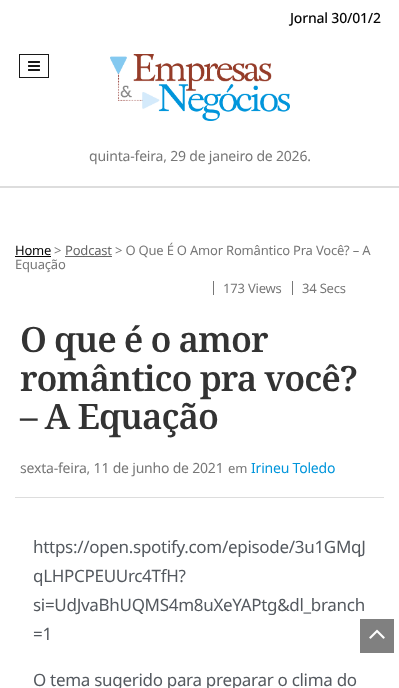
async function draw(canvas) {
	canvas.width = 399;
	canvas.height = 688;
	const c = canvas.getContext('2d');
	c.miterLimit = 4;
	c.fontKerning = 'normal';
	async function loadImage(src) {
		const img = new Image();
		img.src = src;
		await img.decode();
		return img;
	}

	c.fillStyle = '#fff';
	c.fillRect(0, 0, 399, 688);
	c.letterSpacing = '-0.2px';
	c.font = '500 14px Noto Sans';
	c.fillStyle = '#050505';
	c.fillText('Jornal 30/01/2', 290, 23);
	c.strokeStyle = '#181818';
	c.strokeRect(19.5, 54.5, 29, 23);
	c.drawImage(await loadImage('img1.png'), 28, 61, 12, 10);
	c.drawImage(await loadImage('img2.png'), 110, 54, 180, 67);
	c.font = '14px Noto Sans';
	c.fillStyle = '#777';
	c.fillText('quinta-feira, 29 de janeiro de 2026.', 89, 161);
	c.fillStyle = '#ddd';
	c.fillRect(0, 186, 399, 2);
	c.fillRect(15, 497, 369, 1);
	c.font = '13px Noto Sans';
	c.fillStyle = '#050505';
	c.fillText('Home', 15, 255);
	c.fillRect(15, 256, 36, 1);
	c.fillStyle = '#777';
	c.fillText('>', 54, 255);
	c.fillStyle = '#666';
	c.fillText('Podcast', 65, 255);
	c.fillRect(65, 256, 47, 1);
	c.fillStyle = '#777';
	c.fillText('> O Que É O Amor Romântico Pra Você? – A', 115, 255);
	c.fillText('Equação', 15, 269);
	c.fillRect(213, 281, 1, 14);
	c.fillText('173 Views', 223, 293);
	c.fillRect(292, 281, 1, 14);
	c.fillText('34 Secs', 302, 293);
	c.letterSpacing = '-1px';
	c.font = '600 35px Noto Serif';
	c.fillStyle = '#333';
	for (const [text, x, y] of [
		['O que é o amor', 20, 352],
		['romântico pra você?', 20, 391],
		['– A Equação', 20, 429],
	]) {
		c.fillText(text, x, y);
	}
	c.letterSpacing = '-0.2px';
	c.font = '14px Noto Sans';
	c.fillStyle = '#777';
	c.fillText('sexta-feira, 11 de junho de 2021', 20, 473);
	c.font = '13px Noto Sans';
	c.fillText('em', 228, 473);
	c.font = '14px Noto Sans';
	c.fillStyle = '#0095db';
	c.fillText('Irineu Toledo', 251, 473);
	c.letterSpacing = '-0.3px';
	c.font = '17px Noto Sans';
	c.fillStyle = '#54595f';
	for (const [text, x, y] of [
		['https://open.spotify.com/episode/3u1GMqJ', 33, 553],
		['qLHPCPEUUrc4TfH?', 33, 582],
		['si=UdJvaBhUQMS4m8uXeYAPtg&dl_branch', 33, 611],
		['=1', 33, 640],
		['O tema sugerido para preparar o clima do', 33, 686],
	]) {
		c.fillText(text, x, y);
	}
	c.fillStyle = '#808080';
	c.fillRect(360, 619, 34, 34);
	c.drawImage(await loadImage('img3.png'), 369, 629, 16, 10);
}

draw(document.querySelector('canvas'));
